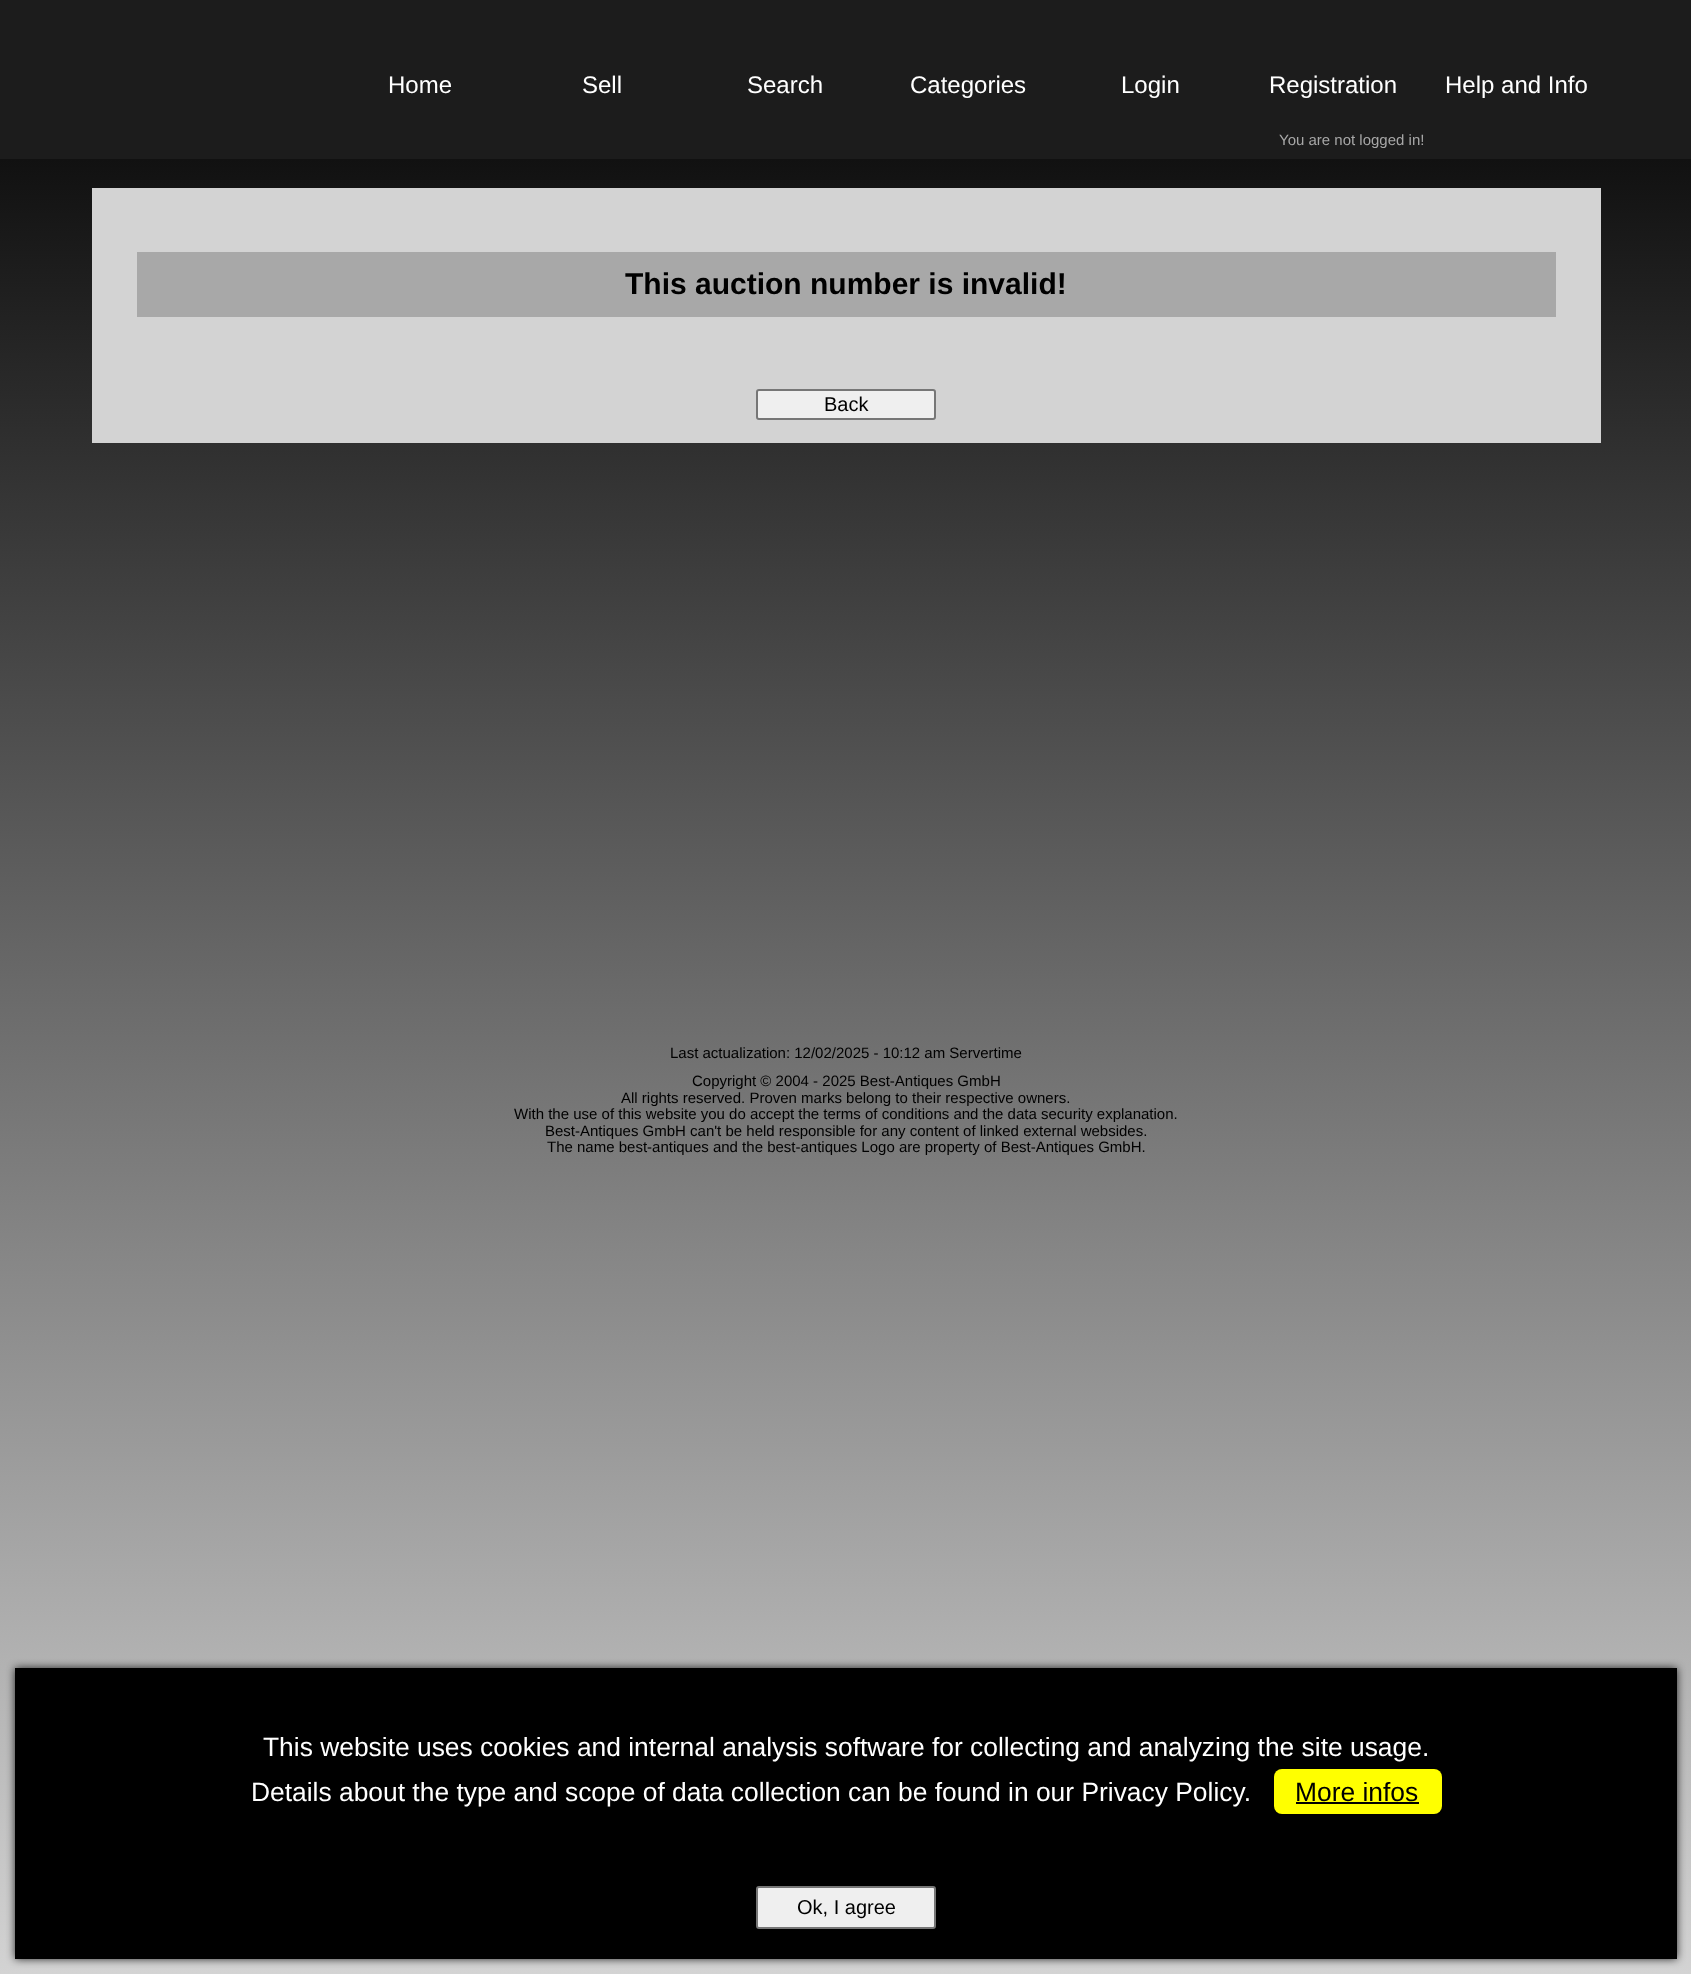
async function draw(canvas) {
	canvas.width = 1691;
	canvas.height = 1974;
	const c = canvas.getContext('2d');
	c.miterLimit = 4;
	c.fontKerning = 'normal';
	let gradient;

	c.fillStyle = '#fff';
	c.fillRect(0, 0, 1691, 1974);
	gradient = c.createLinearGradient(846, 0, 846, 1974);
	gradient.addColorStop(0, '#000');
	gradient.addColorStop(1, '#d3d3d3');
	c.fillStyle = gradient;
	c.fillRect(0, 159, 1691, 1815);
	c.fillStyle = '#1c1c1c';
	c.fillRect(0, 0, 1691, 159);
	c.font = '24px Liberation Sans';
	c.fillStyle = '#fff';
	for (const [text, x, y] of [
		['Home', 388, 93],
		['Sell', 582, 93],
		['Search', 747, 93],
		['Categories', 910, 93],
		['Login', 1121, 93],
		['Registration', 1269, 93],
		['Help and Info', 1445, 93],
	]) {
		c.fillText(text, x, y);
	}
	c.font = '15px Liberation Sans';
	c.fillStyle = '#a7a7a7';
	c.fillText('You are not logged in!', 1279, 145);
	c.fillStyle = '#d3d3d3';
	c.fillRect(92, 188, 1509, 255);
	c.fillStyle = '#a8a8a8';
	c.fillRect(137, 252, 1419, 65);
	c.font = 'bold 30px Liberation Sans';
	c.fillStyle = '#000';
	c.fillText('This auction number is invalid!', 625, 294);
	c.fillStyle = '#efefef';
	c.beginPath();
	c.roundRect(757, 390, 178, 29, 2);
	c.fill();
	c.strokeStyle = '#767676';
	c.lineWidth = 2;
	c.stroke();
	c.font = '20px Liberation Sans';
	c.fillStyle = '#000';
	c.fillText('Back', 824, 411);
	c.font = '15px Liberation Sans';
	for (const [text, x, y] of [
		['Last actualization: 12/02/2025 - 10:12 am Servertime', 670, 1058],
		['Copyright © 2004 - 2025 Best-Antiques GmbH', 692, 1086],
		['All rights reserved. Proven marks belong to their respective owners.', 621, 1103],
		['With the use of this website you do accept the terms of conditions and the data security explanation.', 514, 1119],
		['Best-Antiques GmbH can\'t be held responsible for any content of linked external websides.', 545, 1136],
		['The name best-antiques and the best-antiques Logo are property of Best-Antiques GmbH.', 547, 1152],
	]) {
		c.fillText(text, x, y);
	}
	c.fillStyle = '#000000cc';
	c.filter = 'blur(4px)';
	c.beginPath();
	c.rect(15, 1668, 1662, 291);
	c.fill();
	c.filter = 'none';
	c.fillStyle = '#000';
	c.fillRect(15, 1668, 1662, 291);
	c.font = '26.4px Liberation Sans';
	c.fillStyle = '#fff';
	c.fillText('This website uses cookies and internal analysis software for collecting and analyzing the site usage.', 263, 1756);
	c.fillText('Details about the type and scope of data collection can be found in our Privacy Policy.', 251, 1801);
	c.fillStyle = '#ff0';
	c.beginPath();
	c.roundRect(1274, 1769, 168, 45, 8);
	c.fill();
	c.fillStyle = '#000';
	c.fillText('More infos', 1295, 1801);
	c.fillRect(1296, 1802, 123, 2);
	c.fillStyle = '#efefef';
	c.beginPath();
	c.roundRect(757, 1887, 178, 41, 2);
	c.fill();
	c.stroke();
	c.font = '20px Liberation Sans';
	c.fillStyle = '#000';
	c.fillText('Ok, I agree', 797, 1914);
}

draw(document.querySelector('canvas'));
